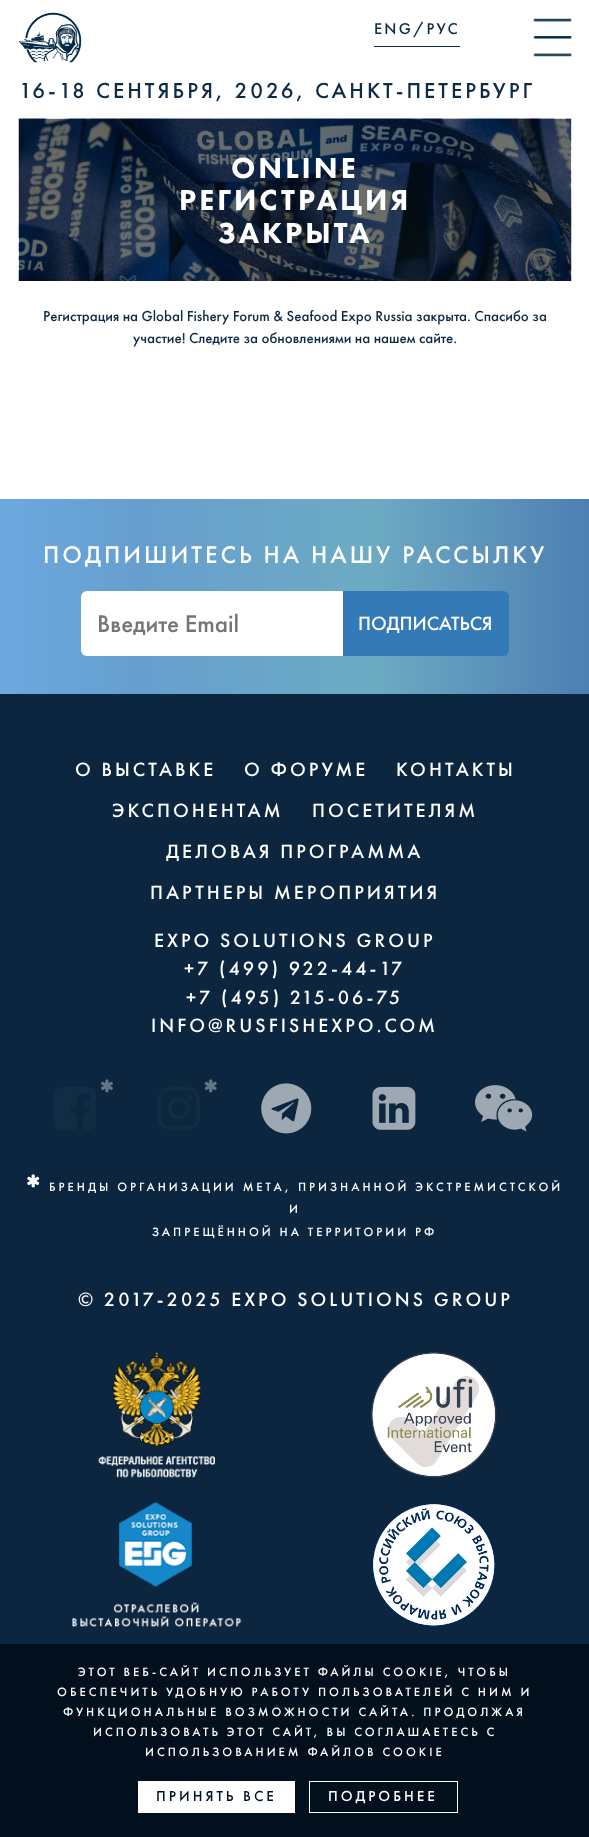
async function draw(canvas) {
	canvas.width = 589;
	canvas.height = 1837;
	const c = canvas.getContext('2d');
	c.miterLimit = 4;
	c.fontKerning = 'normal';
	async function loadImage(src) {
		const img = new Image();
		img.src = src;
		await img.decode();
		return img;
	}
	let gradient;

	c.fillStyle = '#fff';
	c.fillRect(0, 0, 589, 1837);
	c.drawImage(await loadImage('img1.png'), 18, 12, 64, 51);
	c.fillStyle = '#0e2b45';
	c.fillRect(374, 46, 86, 1);
	c.letterSpacing = '2.25px';
	c.font = '500 16.25px Futura PT';
	c.fillText('ENG/РУС', 374, 34);
	c.drawImage(await loadImage('img2.png'), 533, 18, 39, 39);
	c.letterSpacing = '3px';
	c.font = '500 22.5px Futura PT';
	c.fillText('16-18 СЕНТЯБРЯ, 2026, САНКТ-ПЕТЕРБУРГ', 19, 98);
	c.drawImage(await loadImage('img3.png'), 18, 118, 554, 163);
	c.font = '900 30px Futura PT';
	c.fillStyle = '#fff';
	for (const [text, x, y] of [
		['ONLINE', 231, 178],
		['РЕГИСТРАЦИЯ', 179, 210],
		['ЗАКРЫТА', 218, 243],
	]) {
		c.fillText(text, x, y);
	}
	c.letterSpacing = '0px';
	c.font = '500 15px Futura PT';
	c.fillStyle = '#0e2b45';
	c.fillText('Регистрация на Global Fishery Forum & Seafood Expo Russia закрыта. Спасибо за', 43, 321);
	c.fillText('участие! Следите за обновлениями на нашем сайте.', 133, 343);
	c.fillStyle = '#0c263f';
	c.fillRect(0, 694, 589, 950);
	gradient = c.createLinearGradient(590, 596, 0, 596);
	gradient.addColorStop(0, '#4d7fb3');
	gradient.addColorStop(0.37, '#6dabc3');
	gradient.addColorStop(0.77, '#669fcf');
	gradient.addColorStop(1, '#6ca9e0');
	c.fillStyle = gradient;
	c.fillRect(0, 499, 589, 195);
	c.letterSpacing = '3px';
	c.font = '500 25px Futura PT';
	c.fillStyle = '#fff';
	c.fillText('ПОДПИШИТЕСЬ НА НАШУ РАССЫЛКУ', 43, 563);
	c.beginPath();
	c.roundRect(81, 591, 262, 65, [6, 0, 0, 6]);
	c.fill();
	c.letterSpacing = '0px';
	c.fillStyle = '#757575';
	c.fillText('Введите Email', 97, 632);
	c.fillStyle = '#337ab7';
	c.beginPath();
	c.roundRect(343, 591, 166, 65, [0, 6, 6, 0]);
	c.fill();
	c.font = '500 20px Futura PT';
	c.fillStyle = '#fff';
	c.fillText('ПОДПИСАТЬСЯ', 358, 630);
	c.letterSpacing = '3px';
	for (const [text, x, y] of [
		['О ВЫСТАВКЕ', 75, 776],
		['О ФОРУМЕ', 244, 776],
		['КОНТАКТЫ', 396, 776],
		['ЭКСПОНЕНТАМ', 112, 817],
		['ПОСЕТИТЕЛЯМ', 312, 817],
		['ДЕЛОВАЯ ПРОГРАММА', 166, 858],
		['ПАРТНЕРЫ МЕРОПРИЯТИЯ', 150, 899],
		['EXPO SOLUTIONS GROUP', 154, 947],
		['+7 (499) 922-44-17', 184, 975],
		['+7 (495) 215-06-75', 186, 1004],
		['INFO@RUSFISHEXPO.COM', 151, 1032],
	]) {
		c.fillText(text, x, y);
	}
	c.drawImage(await loadImage('img4.png'), 54, 1087, 42, 43);
	c.drawImage(await loadImage('img5.png'), 101, 1079, 12, 14);
	c.drawImage(await loadImage('img6.png'), 158, 1087, 42, 43);
	c.drawImage(await loadImage('img7.png'), 204, 1079, 13, 14);
	c.drawImage(await loadImage('img8.png'), 261, 1083, 51, 51);
	c.drawImage(await loadImage('img9.png'), 372, 1086, 44, 44);
	c.drawImage(await loadImage('img10.png'), 475, 1085, 58, 47);
	c.drawImage(await loadImage('img11.png'), 27, 1174, 13, 14);
	c.font = '500 12.5px Futura PT';
	for (const [text, x, y] of [
		['БРЕНДЫ ОРГАНИЗАЦИИ META, ПРИЗНАННОЙ ЭКСТРЕМИСТСКОЙ', 49, 1191],
		['И', 289, 1213],
		['ЗАПРЕЩЁННОЙ НА ТЕРРИТОРИИ РФ', 152, 1236],
	]) {
		c.fillText(text, x, y);
	}
	c.font = '500 20px Futura PT';
	c.fillText('© 2017-2025 EXPO SOLUTIONS GROUP', 78, 1306);
	c.drawImage(await loadImage('img12.png'), 98, 1352, 117, 126);
	c.drawImage(await loadImage('img13.png'), 72, 1502, 170, 125);
	c.drawImage(await loadImage('img14.png'), 371, 1352, 126, 126);
	c.drawImage(await loadImage('img15.png'), 371, 1502, 125, 125);
	c.fillStyle = '#02101d';
	c.fillRect(0, 1644, 589, 193);
	c.font = '500 12.5px Futura PT';
	c.fillStyle = '#fff';
	for (const [text, x, y] of [
		['ЭТОТ ВЕБ-САЙТ ИСПОЛЬЗУЕТ ФАЙЛЫ COOKIE, ЧТОБЫ', 78, 1676],
		['ОБЕСПЕЧИТЬ УДОБНУЮ РАБОТУ ПОЛЬЗОВАТЕЛЕЙ С НИМ И', 57, 1696],
		['ФУНКЦИОНАЛЬНЫЕ ВОЗМОЖНОСТИ САЙТА. ПРОДОЛЖАЯ', 63, 1716],
		['ИСПОЛЬЗОВАТЬ ЭТОТ САЙТ, ВЫ СОГЛАШАЕТЕСЬ С', 93, 1736],
		['ИСПОЛЬЗОВАНИЕМ ФАЙЛОВ COOKIE', 145, 1756],
	]) {
		c.fillText(text, x, y);
	}
	c.fillRect(138, 1781, 157, 32);
	c.font = '500 15px Futura PT';
	c.fillStyle = '#02101d';
	c.fillText('ПРИНЯТЬ ВСЕ', 156, 1801);
	c.strokeStyle = '#fff';
	c.strokeRect(309.5, 1781.5, 148, 31);
	c.fillStyle = '#fff';
	c.fillText('ПОДРОБНЕЕ', 328, 1801);
}

draw(document.querySelector('canvas'));
